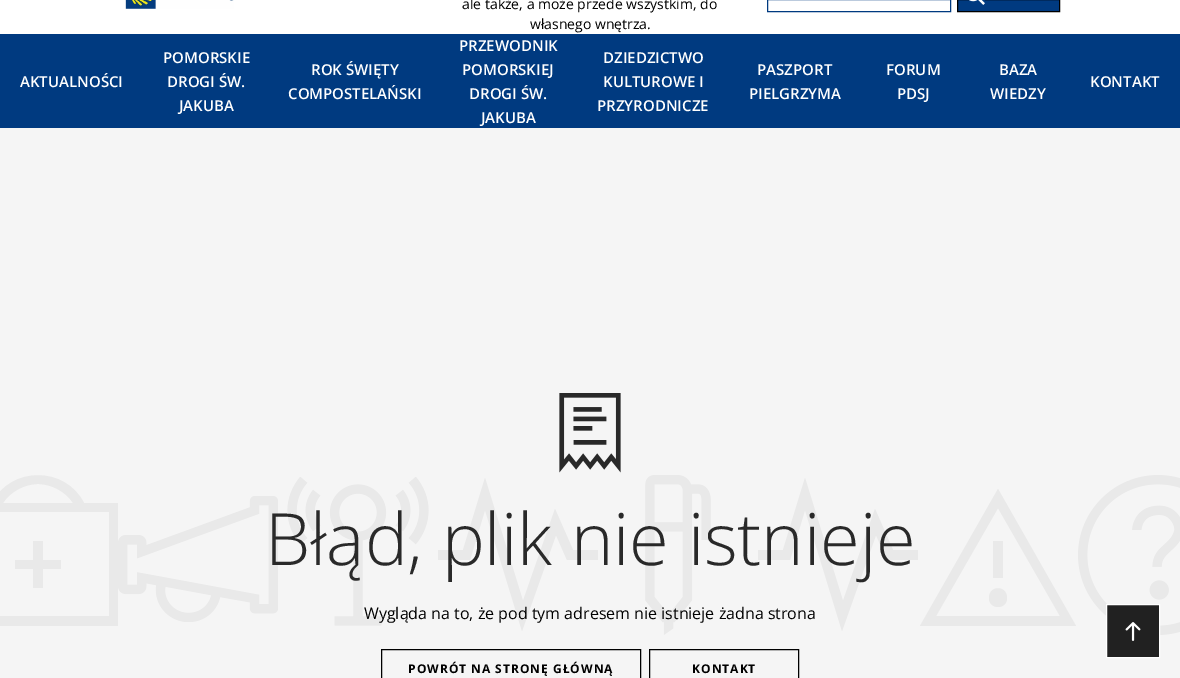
%!PS
<< /PageSize [1180 678] >> setpagedevice
/m/moveto load def
/l/rlineto load def
/c/rcurveto load def
/z/closepath load def
/f/fill load def
/s/stroke load def
/q/gsave load def
/Q_/grestore load def
/C { dup -16 bitshift 255 div exch dup -8 bitshift 255 and 255 div exch 255 and 255 div setrgbcolor } def
/F { [ exch dup neg 0 0 3 -1 roll 0 0 ] selectfont } def
/T { moveto show } def
/R { rectfill } def
/I { 5 dict begin { /h /w /y /x /name } { exch def } forall
  gsave x y translate w h scale
  w h 8 [w 0 0 h 0 0] name (r) file false 3 colorimage grestore end } def
0 678 translate 1 -1 scale
4 setmiterlimit
16#F5F5F5 C
0 0 1180 678 R
16#FFFFFF C
0 0 1180 34 R
(1.rgb) 125 0 109 9 I
/OpenSans-Regular 14 F
16#000000 C
(ale także, a może przede wszystkim, do) 462 9 T
(własnego wnętrza.) 530 29 T
16#003A80 C
767.5 -.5 183 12 rectstroke
957.5 -.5 m 102 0 l 0 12 l -102 0 l z q f Q_
16#000000 C
s
(2.rgb) 969 0 16 5 I
16#003A80 C
0 34 1180 94 R
/OpenSans-SemiBold 15 F
16#FFFFFF C
(AKTUALNOŚCI) 20 87 T
(POMORSKIE) 163 63 T
(DROGI ŚW.) 167 87 T
(JAKUBA) 179 111 T
(ROK ŚWIĘTY) 311 75 T
(COMPOSTELAŃSKI) 288 99 T
(PRZEWODNIK) 459 51 T
(POMORSKIEJ) 462 75 T
(DROGI ŚW.) 469 99 T
(JAKUBA) 481 123 T
(DZIEDZICTWO) 603 63 T
(KULTUROWE I) 603 87 T
(PRZYRODNICZE) 597 111 T
(PASZPORT) 757 75 T
(PIELGRZYMA) 749 99 T
(FORUM) 886 75 T
(PDSJ) 897 99 T
(BAZA) 999 75 T
(WIEDZY) 990 99 T
(KONTAKT) 1090 87 T
16#E9E9E9 C
84 503 m -19 -37 -73 -37 -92 0 c -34 0 l 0 123 l 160 0 l 0 -123 l z 38 484 m 14 0 28 8 35 19 c -70 0 l 7 -11 21 -19 35 -19 c z 109 616 m -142 0 l 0 -104 l 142 0 l z 33 569 m -18 0 l 0 -9 l 18 0 l 0 -19 l 10 0 l 0 19 l 18 0 l 0 9 l -18 0 l 0 19 l -10 0 l z f
(3.rgb) 118 496 160 126 I
(4.rgb) 287 477 142 149 I
573 550 m -18 -41 l -32 92 l -38 -123 l -22 72 l -25 0 l 0 10 l 32 0 l 15 -50 l 37 121 l 34 -96 l 11 25 l 31 0 l 0 -10 l z f
(5.rgb) 645 475 66 160 I
893 550 m -18 -41 l -32 92 l -38 -123 l -22 72 l -25 0 l 0 10 l 32 0 l 15 -50 l 37 121 l 34 -96 l 11 25 l 31 0 l 0 -10 l z f
998 489 m -78 137 l 156 0 l z 998 508 m 62 108 l -124 0 l z 1003 578 m -10 0 l 0 -37 l 10 0 l z 1007 598 m 0 12 -18 12 -18 0 c 0 -13 18 -13 18 0 c z f
(6.rgb) 1078 475 102 160 I
(7.rgb) 559 393 62 80 I
/OpenSans-Light 72 F
16#292929 C
(Błąd, plik nie istnieje) 265 565 T
/OpenSans-Regular 16 F
16#000000 C
(Wygląda na to, że pod tym adresem nie istnieje żadna strona) 364 619 T
381.5 649.5 259 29 rectstroke
/OpenSans-Bold 12 F
408 673 m 1 0 (POWRÓT NA STRONĘ GŁÓWNĄ) ashow
649.5 649.5 149 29 rectstroke
692 673 m 1 0 (KONTAKT) ashow
16#212121 C
1107 605 52 52 R
(8.rgb) 1125 622 16 19 I
16#FFFFFF C
1106.5 604.5 53 53 rectstroke
showpage
